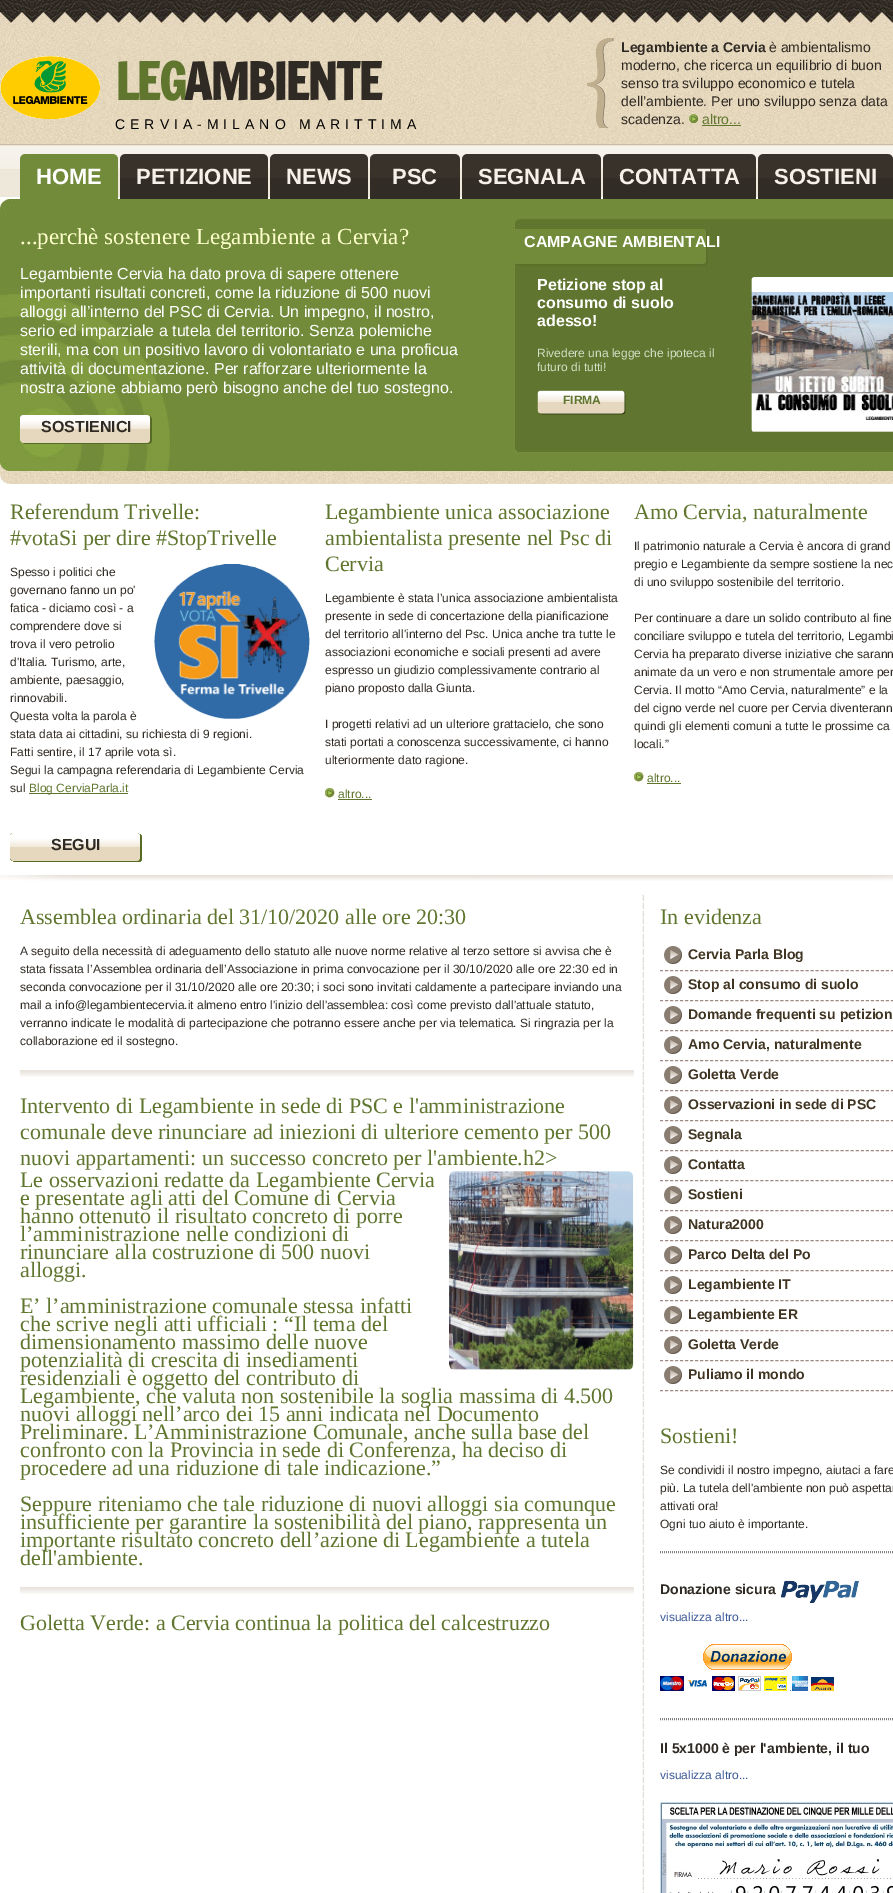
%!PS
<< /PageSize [893 1893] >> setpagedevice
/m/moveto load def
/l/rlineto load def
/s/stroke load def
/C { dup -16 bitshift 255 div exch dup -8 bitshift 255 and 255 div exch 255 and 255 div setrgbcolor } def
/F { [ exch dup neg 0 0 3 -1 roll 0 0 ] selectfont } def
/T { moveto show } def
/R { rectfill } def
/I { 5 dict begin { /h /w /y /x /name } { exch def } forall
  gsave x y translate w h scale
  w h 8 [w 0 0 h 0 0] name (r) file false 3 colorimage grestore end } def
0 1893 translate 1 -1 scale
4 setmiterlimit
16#FFFFFF C
0 0 893 1893 R
(1.rgb) 0 0 893 198 I
(2.rgb) 0 56 100 63 I
/FrancoisOne-Bold 50 F
16#60762F C
115 100 m -2 0 (LEG) ashow
16#302A24 C
184 100 m -2 0 (AMBIENTE) ashow
/LiberationSans-Regular 14 F
16#000000 C
115 129 m 5 0 (CERVIA-MILANO MARITTIMA) ashow
(3.rgb) 586 38 28 90 I
/LiberationSans-Bold 14 F
16#302A24 C
(Legambiente a Cervia) 621 52 T
/LiberationSans-Regular 14 F
(è ambientalismo) 769 52 T
(moderno, che ricerca un equilibrio di buon) 621 70 T
(senso tra sviluppo economico e tutela) 621 88 T
(dell’ambiente. Per uno sviluppo senza data) 621 106 T
(scadenza.) 621 124 T
(4.rgb) 689 114 10 10 I
16#60762F C
(altro...) 702 124 T
702 125 39 1 R
(5.rgb) 112 154 6 45 I
(6.rgb) 20 154 92 45 I
/LiberationSans-Bold 22 F
16#FFFFFF C
(HOME) 36 184 T
(7.rgb) 262 154 6 45 I
(8.rgb) 120 154 142 45 I
16#F5F1E9 C
(PETIZIONE) 136 184 T
(7.rgb) 362 154 6 45 I
(9.rgb) 270 154 92 45 I
(NEWS) 286 184 T
(7.rgb) 454 154 6 45 I
(10.rgb) 370 154 84 45 I
(PSC) 392 184 T
(7.rgb) 595 154 6 45 I
(11.rgb) 462 154 133 45 I
(SEGNALA) 478 184 T
(7.rgb) 750 154 6 45 I
(12.rgb) 603 154 147 45 I
(CONTATTA) 619 184 T
(7.rgb) 887 154 6 45 I
(13.rgb) 758 154 129 45 I
(SOSTIENI) 774 184 T
(14.rgb) 0 199 893 285 I
/LiberationSerif-Regular 23 F
16#FFFFCC C
(...perchè sostenere Legambiente a Cervia?) 20 244 T
/LiberationSans-Regular 16 F
16#FFFFFF C
(Legambiente Cervia ha dato prova di sapere ottenere) 20 279 T
(importanti risultati concreti, come la riduzione di 500 nuovi) 20 298 T
(alloggi all’interno del PSC di Cervia. Un impegno, il nostro,) 20 317 T
(serio ed imparziale a tutela del territorio. Senza polemiche) 20 336 T
(sterili, ma con un positivo lavoro di volontariato e una proficua) 20 355 T
(attività di documentazione. Per rafforzare ulteriormente la) 20 374 T
(nostra azione abbiamo però bisogno anche del tuo sostegno.) 20 393 T
(15.rgb) 20 415 132 29 I
/LiberationSans-Bold 16 F
16#302A24 C
(SOSTIENICI) 41 432 T
16#FFFFFF C
(CAMPAGNE AMBIENTALI) 524 247 T
(Petizione stop al) 537 290 T
(consumo di suolo) 537 308 T
(adesso!) 537 326 T
/LiberationSans-Regular 12 F
16#D2E1C6 C
(Rivedere una legge che ipoteca il) 537 357 T
(futuro di tutti!) 537 371 T
(16.rgb) 537 390 89 25 I
/LiberationSans-Bold 12 F
16#60762F C
(FIRMA) 563 404 T
(17.rgb) 751 277 142 155 I
/LiberationSerif-Regular 22 F
(Referendum Trivelle:) 10 519 T
(#votaSi per dire #StopTrivelle) 10 545 T
(18.rgb) 154 564 156 155 I
/LiberationSans-Regular 12 F
16#302A24 C
(Spesso i politici che) 10 576 T
(governano fanno un po') 10 594 T
(fatica - diciamo così - a) 10 612 T
(comprendere dove si) 10 630 T
(trova il vero petrolio) 10 648 T
(d'Italia. Turismo, arte,) 10 666 T
(ambiente, paesaggio,) 10 684 T
(rinnovabili.) 10 702 T
(Questa volta la parola è) 10 720 T
(stata data ai cittadini, su richiesta di 9 regioni.) 10 738 T
(Fatti sentire, il 17 aprile vota sì.) 10 756 T
(Segui la campagna referendaria di Legambiente Cervia) 10 774 T
(sul) 10 792 T
16#60762F C
29 793 99 1 R
(Blog CerviaParla.it) 29 792 T
(19.rgb) 10 833 132 29 I
/LiberationSans-Bold 16 F
16#302A24 C
(SEGUI) 51 850 T
/LiberationSerif-Regular 22 F
16#60762F C
(Legambiente unica associazione) 325 519 T
(ambientalista presente nel Psc di) 325 545 T
(Cervia) 325 571 T
/LiberationSans-Regular 12 F
16#302A24 C
(Legambiente è stata l’unica associazione ambientalista) 325 602 T
(presente in sede di concertazione della pianificazione) 325 620 T
(del territorio all'interno del Psc. Unica anche tra tutte le) 325 638 T
(associazioni economiche e sociali presenti ad avere) 325 656 T
(espresso un giudizio complessivamente contrario al) 325 674 T
(piano proposto dalla Giunta.) 325 692 T
(I progetti relativi ad un ulteriore grattacielo, che sono) 325 728 T
(stati portati a conoscenza successivamente, ci hanno) 325 746 T
(ulteriormente dato ragione.) 325 764 T
(20.rgb) 325 788 10 10 I
16#60762F C
(altro...) 338 798 T
338 799 34 1 R
/LiberationSerif-Regular 22 F
(Amo Cervia, naturalmente) 634 519 T
/LiberationSans-Regular 12 F
16#302A24 C
(Il patrimonio naturale a Cervia è ancora di grand) 634 550 T
(pregio e Legambiente da sempre sostiene la nec) 634 568 T
(di uno sviluppo sostenibile del territorio.) 634 586 T
(Per continuare a dare un solido contributo al fine) 634 622 T
(conciliare sviluppo e tutela del territorio, Legambi) 634 640 T
(Cervia ha preparato diverse iniziative che sarann) 634 658 T
(animate da un vero e non strumentale amore per) 634 676 T
(Cervia. Il motto “Amo Cervia, naturalmente” e la) 634 694 T
(del cigno verde nel cuore per Cervia diventerann) 634 712 T
(quindi gli elementi comuni a tutte le prossime ca) 634 730 T
(locali.”) 634 748 T
(20.rgb) 634 772 10 10 I
16#60762F C
(altro...) 647 782 T
647 783 34 1 R
(21.rgb) 0 875 893 6 I
(22.rgb) 642 894 2 999 I
(23.rgb) 20 1070 614 7 I
/LiberationSerif-Regular 22 F
(Assemblea ordinaria del 31/10/2020 alle ore 20:30) 20 924 T
/LiberationSans-Regular 12 F
16#302A24 C
(A seguito della necessità di adeguamento dello statuto alle nuove norme relative al terzo settore si avvisa che è) 20 955 T
(stata fissata l’Assemblea ordinaria dell’Associazione in prima convocazione per il 30/10/2020 alle ore 22:30 ed in) 20 973 T
(seconda convocazione per il 31/10/2020 alle ore 20:30; i soci sono invitati caldamente a partecipare inviando una) 20 991 T
(mail a info@legambientecervia.it almeno entro l'inizio dell'assemblea: così come previsto dall'attuale statuto,) 20 1009 T
(verranno indicate le modalità di partecipazione che potranno essere anche per via telematica. Si ringrazia per la) 20 1027 T
(collaborazione ed il sostegno.) 20 1045 T
(23.rgb) 20 1587 614 7 I
/LiberationSerif-Regular 22 F
16#60762F C
(Intervento di Legambiente in sede di PSC e l'amministrazione) 20 1113 T
(comunale deve rinunciare ad iniezioni di ulteriore cemento per 500) 20 1139 T
(nuovi appartamenti: un successo concreto per l'ambiente.h2>) 20 1165 T
(Le osservazioni redatte da Legambiente Cervia) 20 1187 T
(e presentate agli atti del Comune di Cervia) 20 1205 T
(hanno ottenuto il risultato concreto di porre) 20 1223 T
(l’amministrazione nelle condizioni di) 20 1241 T
(rinunciare alla costruzione di 500 nuovi) 20 1259 T
(alloggi.) 20 1277 T
(24.rgb) 449 1171 185 199 I
(E’ l’amministrazione comunale stessa infatti) 20 1313 T
(che scrive negli atti ufficiali : “Il tema del) 20 1331 T
(dimensionamento massimo delle nuove) 20 1349 T
(potenzialità di crescita di insediamenti) 20 1367 T
(residenziali è oggetto del contributo di) 20 1385 T
(Legambiente, che valuta non sostenibile la soglia massima di 4.500) 20 1403 T
(nuovi alloggi nell’arco dei 15 anni indicata nel Documento) 20 1421 T
(Preliminare. L’Amministrazione Comunale, anche sulla base del) 20 1439 T
(confronto con la Provincia in sede di Conferenza, ha deciso di) 20 1457 T
(procedere ad una riduzione di tale indicazione.”) 20 1475 T
(Seppure riteniamo che tale riduzione di nuovi alloggi sia comunque) 20 1511 T
(insufficiente per garantire la sostenibilità del piano, rappresenta un) 20 1529 T
(importante risultato concreto dell’azione di Legambiente a tutela) 20 1547 T
(dell'ambiente.) 20 1565 T
(Goletta Verde: a Cervia continua la politica del calcestruzzo) 20 1630 T
(In evidenza) 660 924 T
16#9E8A85 C
[3 2.02] 0 setdash
660 970.5 m 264 0 l s
(25.rgb) 664 946 18 18 I
/LiberationSans-Bold 14 F
16#403522 C
(Cervia Parla Blog) 688 959 T
16#9E8A85 C
660 1000.5 m 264 0 l s
(25.rgb) 664 976 18 18 I
16#403522 C
(Stop al consumo di suolo) 688 989 T
16#9E8A85 C
660 1030.5 m 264 0 l s
(25.rgb) 664 1006 18 18 I
16#403522 C
(Domande frequenti su petizion) 688 1019 T
16#9E8A85 C
660 1060.5 m 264 0 l s
(25.rgb) 664 1036 18 18 I
16#403522 C
(Amo Cervia, naturalmente) 688 1049 T
16#9E8A85 C
660 1090.5 m 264 0 l s
(25.rgb) 664 1066 18 18 I
16#403522 C
(Goletta Verde) 688 1079 T
16#9E8A85 C
660 1120.5 m 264 0 l s
(25.rgb) 664 1096 18 18 I
16#403522 C
(Osservazioni in sede di PSC) 688 1109 T
16#9E8A85 C
660 1150.5 m 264 0 l s
(25.rgb) 664 1126 18 18 I
16#403522 C
(Segnala) 688 1139 T
16#9E8A85 C
660 1180.5 m 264 0 l s
(25.rgb) 664 1156 18 18 I
16#403522 C
(Contatta) 688 1169 T
16#9E8A85 C
660 1210.5 m 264 0 l s
(25.rgb) 664 1186 18 18 I
16#403522 C
(Sostieni) 688 1199 T
16#9E8A85 C
660 1240.5 m 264 0 l s
(25.rgb) 664 1216 18 18 I
16#403522 C
(Natura2000) 688 1229 T
16#9E8A85 C
660 1270.5 m 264 0 l s
(25.rgb) 664 1246 18 18 I
16#403522 C
(Parco Delta del Po) 688 1259 T
16#9E8A85 C
660 1300.5 m 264 0 l s
(25.rgb) 664 1276 18 18 I
16#403522 C
(Legambiente IT) 688 1289 T
16#9E8A85 C
660 1330.5 m 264 0 l s
(25.rgb) 664 1306 18 18 I
16#403522 C
(Legambiente ER) 688 1319 T
16#9E8A85 C
660 1360.5 m 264 0 l s
(25.rgb) 664 1336 18 18 I
16#403522 C
(Goletta Verde) 688 1349 T
16#9E8A85 C
660 1390.5 m 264 0 l s
(25.rgb) 664 1366 18 18 I
16#403522 C
(Puliamo il mondo) 688 1379 T
/LiberationSerif-Regular 22 F
16#60762F C
(Sostieni!) 660 1443 T
/LiberationSans-Regular 12 F
16#302A24 C
(Se condividi il nostro impegno, aiutaci a fare) 660 1474 T
(più. La tutela dell'ambiente non può aspettar) 660 1492 T
(attivati ora!) 660 1510 T
(Ogni tuo aiuto è importante.) 660 1528 T
16#808080 C
[1 1] 0 setdash
660 1551.5 m 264 0 l s
660 1552.5 m 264 0 l s
/LiberationSans-Bold 14 F
16#302A24 C
(Donazione sicura) 660 1594 T
(26.rgb) 781 1580 78 23 I
/LiberationSans-Regular 12 F
16#3B5998 C
(visualizza altro...) 660 1621 T
(27.rgb) 660 1644 174 47 I
16#808080 C
660 1718.5 m 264 0 l s
660 1719.5 m 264 0 l s
/LiberationSans-Bold 14 F
16#302A24 C
(Il 5x1000 è per l'ambiente, il tuo) 660 1753 T
/LiberationSans-Regular 12 F
16#3B5998 C
(visualizza altro...) 660 1779 T
(28.rgb) 660 1802 233 91 I
showpage
